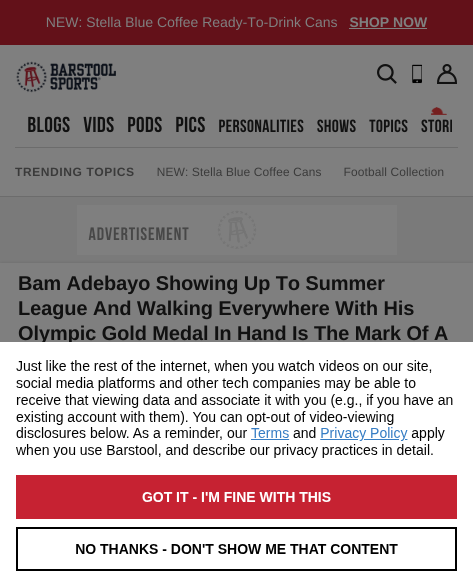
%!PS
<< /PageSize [473 587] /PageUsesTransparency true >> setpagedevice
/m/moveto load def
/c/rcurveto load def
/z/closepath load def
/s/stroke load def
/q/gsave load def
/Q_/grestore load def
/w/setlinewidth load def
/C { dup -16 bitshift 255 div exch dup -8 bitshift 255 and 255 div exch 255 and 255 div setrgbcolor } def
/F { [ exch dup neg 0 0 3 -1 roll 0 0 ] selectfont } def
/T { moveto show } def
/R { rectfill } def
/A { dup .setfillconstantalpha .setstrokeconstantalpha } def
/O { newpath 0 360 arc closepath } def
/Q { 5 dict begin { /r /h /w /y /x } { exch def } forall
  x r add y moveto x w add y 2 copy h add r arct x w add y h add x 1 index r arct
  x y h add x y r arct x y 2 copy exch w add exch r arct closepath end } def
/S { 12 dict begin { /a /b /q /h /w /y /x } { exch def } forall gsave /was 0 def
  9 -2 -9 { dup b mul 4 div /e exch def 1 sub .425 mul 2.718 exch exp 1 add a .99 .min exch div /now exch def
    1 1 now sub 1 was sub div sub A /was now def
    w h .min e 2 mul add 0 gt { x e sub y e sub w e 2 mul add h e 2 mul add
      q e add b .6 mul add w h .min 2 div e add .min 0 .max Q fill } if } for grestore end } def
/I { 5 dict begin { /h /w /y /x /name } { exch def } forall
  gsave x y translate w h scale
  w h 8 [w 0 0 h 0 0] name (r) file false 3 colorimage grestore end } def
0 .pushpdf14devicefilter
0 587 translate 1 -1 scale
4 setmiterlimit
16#F5F5F5 C
0 0 473 587 R
16#C62232 C
0 0 473 45 R
/LiberationSans-Regular 14 F
16#FFFFFF C
(NEW: Stella Blue Coffee Ready-To-Drink Cans) 46 27 T
/LiberationSans-Bold 14 F
(SHOP NOW) 349 27 T
349 28 78 1 R
0 45 473 151 R
(2.rgb) 16 61 100 32 I
(3.rgb) 377 64 20 20 I
(4.rgb) 412 64 10 20 I
16#222222 C
2.1 w
447 68.5 3.5 O s
q
437 64 20 20 rectclip
456 83 m 0 -14 -18 -14 -18 0 c z s
Q_
/BebasNeue-Bold 22 F
27 132 m .4 0 (BLOGS) ashow
83 132 m .4 0 (VIDS) ashow
127 132 m .4 0 (PODS) ashow
175 132 m .4 0 (PICS) ashow
/BebasNeue-Bold 17.5 F
219 132 m .4 0 (PERSONALITIES) ashow
317 132 m .4 0 (SHOWS) ashow
369 132 m .4 0 (TOPICS) ashow
(5.rgb) 431 107 16 8 I
q
21 102 431 45 rectclip
421 132 m .4 0 (STORE) ashow
Q_
16#D8D8D8 C
0 196 473 1 R
15 147 443 1 R
/LiberationSans-Bold 12 F
16#757575 C
15 176 m .6 0 (TRENDING TOPICS) ashow
/LiberationSans-Regular 12 F
157 176 m .1 0 (NEW: Stella Blue Coffee Cans) ashow
344 176 m .1 0 (Football Collection) ashow
16#FFFFFF C
77 205 320 50 R
/BebasNeue-Bold 18 F
16#8F8F8F C
89 240 m .9 0 (ADVERTISEMENT) ashow
(6.rgb) 217 210 40 39 I
16#333333 C
0 263 473 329 0 1.5 .18 S
16#FFFFFF C
0 263 473 324 R
/LiberationSans-Bold 20 F
16#222222 C
18 290 m -.1 0 (Bam Adebayo Showing Up To Summer) ashow
18 315 m -.1 0 (League And Walking Everywhere With His) ashow
18 340 m -.1 0 (Olympic Gold Medal In Hand Is The Mark Of A) ashow
(1.rgb) 0 0 473 571 I
.poppdf14devicefilter showpage
